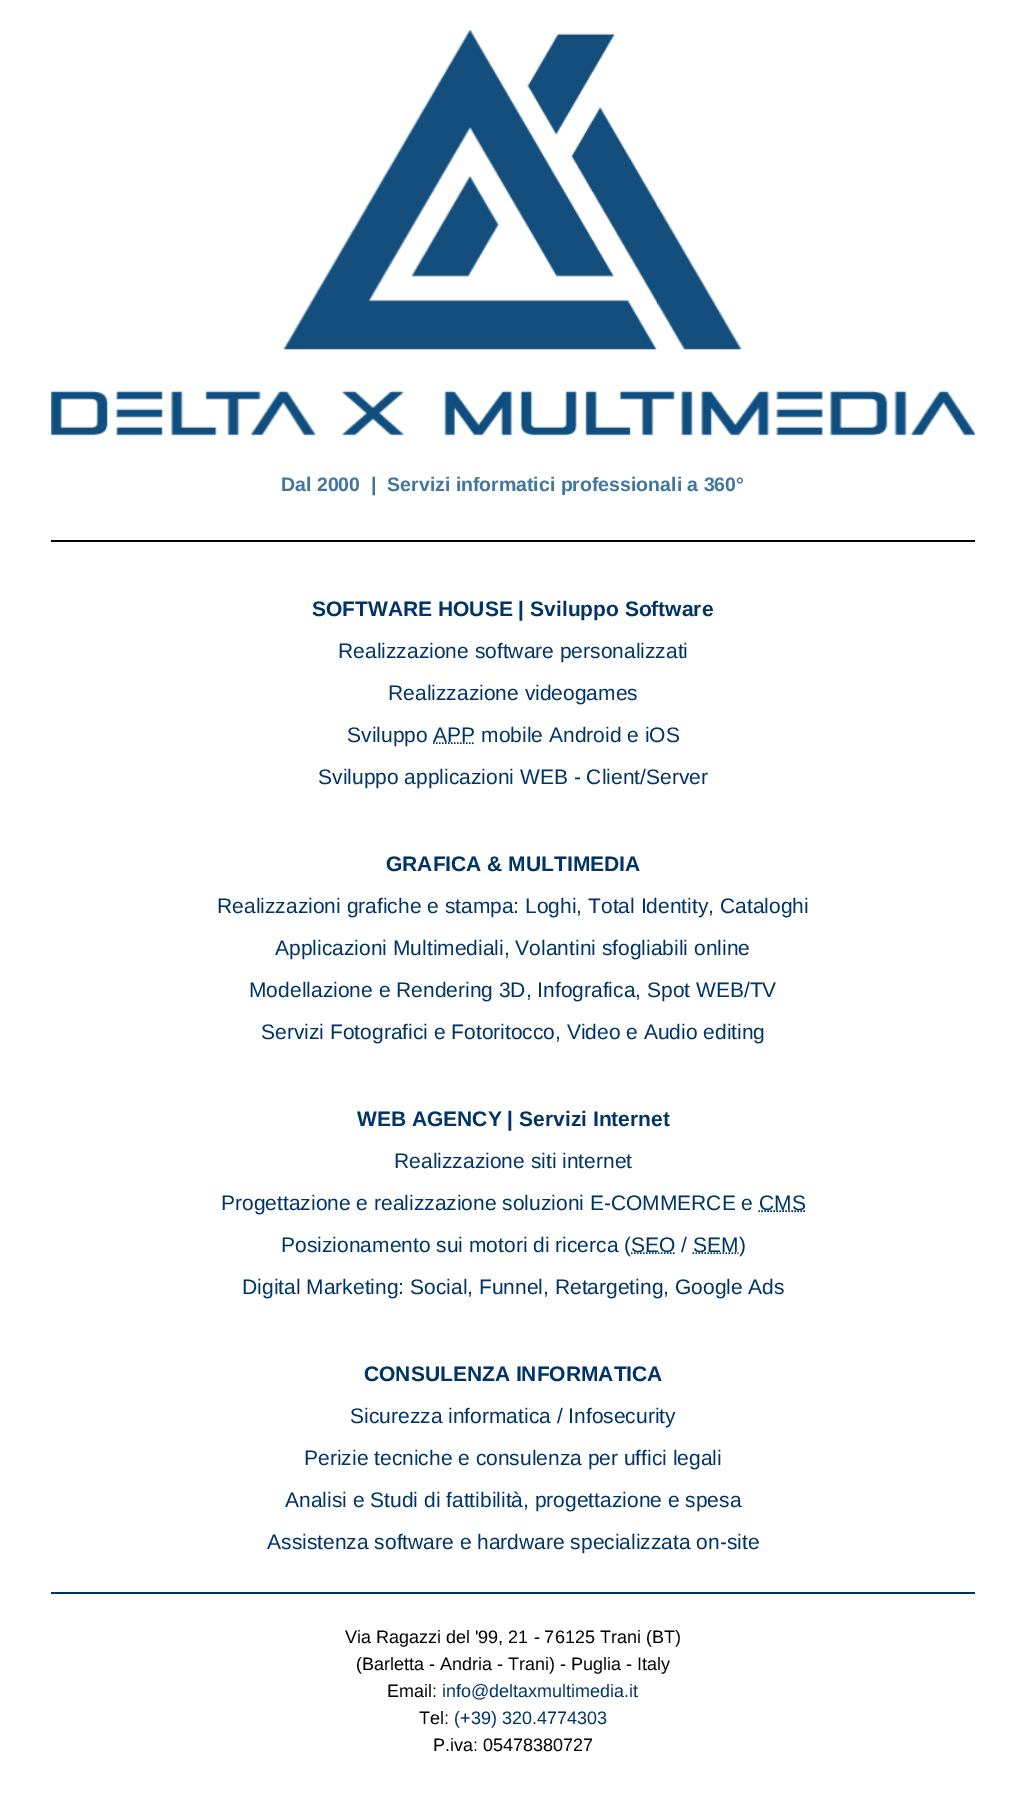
%!PS
<< /PageSize [1026 1817] >> setpagedevice
/m/moveto load def
/l/rlineto load def
/s/stroke load def
/w/setlinewidth load def
/C { dup -16 bitshift 255 div exch dup -8 bitshift 255 and 255 div exch 255 and 255 div setrgbcolor } def
/F { [ exch dup neg 0 0 3 -1 roll 0 0 ] selectfont } def
/T { moveto show } def
/R { rectfill } def
/I { 5 dict begin { /h /w /y /x /name } { exch def } forall
  gsave x y translate w h scale
  w h 8 [w 0 0 h 0 0] name (r) file false 3 colorimage grestore end } def
0 1817 translate 1 -1 scale
4 setmiterlimit
16#FFFFFF C
0 0 1026 1817 R
(1.rgb) 51 30 924 406 I
16#000000 C
51 540 924 2 R
/LiberationSans-Bold 19.5 F
16#41769D C
(Dal 2000  |  Servizi informatici professionali a 360°) 281 491 T
/LiberationSans-Bold 21 F
16#003366 C
(SOFTWARE HOUSE | Sviluppo Software) 312 616 T
/LiberationSans-Regular 21 F
(Realizzazione software personalizzati) 338 658 T
(Realizzazione videogames) 388 700 T
(Sviluppo APP mobile Android e iOS) 347 742 T
1.5 w
[1.5 1.5] 0 setdash
433 743 m 42 0 l s
(Sviluppo applicazioni WEB - Client/Server) 318 784 T
/LiberationSans-Bold 21 F
(GRAFICA & MULTIMEDIA) 386 871 T
/LiberationSans-Regular 21 F
(Realizzazioni grafiche e stampa: Loghi, Total Identity, Cataloghi) 217 913 T
(Applicazioni Multimediali, Volantini sfogliabili online) 275 955 T
(Modellazione e Rendering 3D, Infografica, Spot WEB/TV) 249 997 T
(Servizi Fotografici e Fotoritocco, Video e Audio editing) 261 1039 T
/LiberationSans-Bold 21 F
(WEB AGENCY | Servizi Internet) 357 1126 T
/LiberationSans-Regular 21 F
(Realizzazione siti internet) 394 1168 T
(Progettazione e realizzazione soluzioni E-COMMERCE e) 221 1210 T
758.5 1211 m 47 0 l s
(CMS) 759 1210 T
(Posizionamento sui motori di ricerca \() 281 1252 T
631 1253 m 44 0 l s
(SEO /) 631 1252 T
692.5 1253 m 46 0 l s
(SEM\)) 693 1252 T
(Digital Marketing: Social, Funnel, Retargeting, Google Ads) 242 1294 T
/LiberationSans-Bold 21 F
(CONSULENZA INFORMATICA) 364 1381 T
/LiberationSans-Regular 21 F
(Sicurezza informatica / Infosecurity) 350 1423 T
(Perizie tecniche e consulenza per uffici legali) 304 1465 T
(Analisi e Studi di fattibilità, progettazione e spesa) 285 1507 T
(Assistenza software e hardware specializzata on-site) 267 1549 T
51 1592 924 2 R
/LiberationSans-Regular 18 F
16#000000 C
(Via Ragazzi del '99, 21 - 76125 Trani \(BT\)) 345 1643 T
(\(Barletta - Andria - Trani\) - Puglia - Italy) 356 1670 T
(Email:) 387 1697 T
16#003366 C
(info@deltaxmultimedia.it) 442 1697 T
16#000000 C
(Tel:) 419 1724 T
16#003366 C
(\(+39\) 320.4774303) 454 1724 T
16#000000 C
(P.iva: 05478380727) 433 1751 T
showpage
